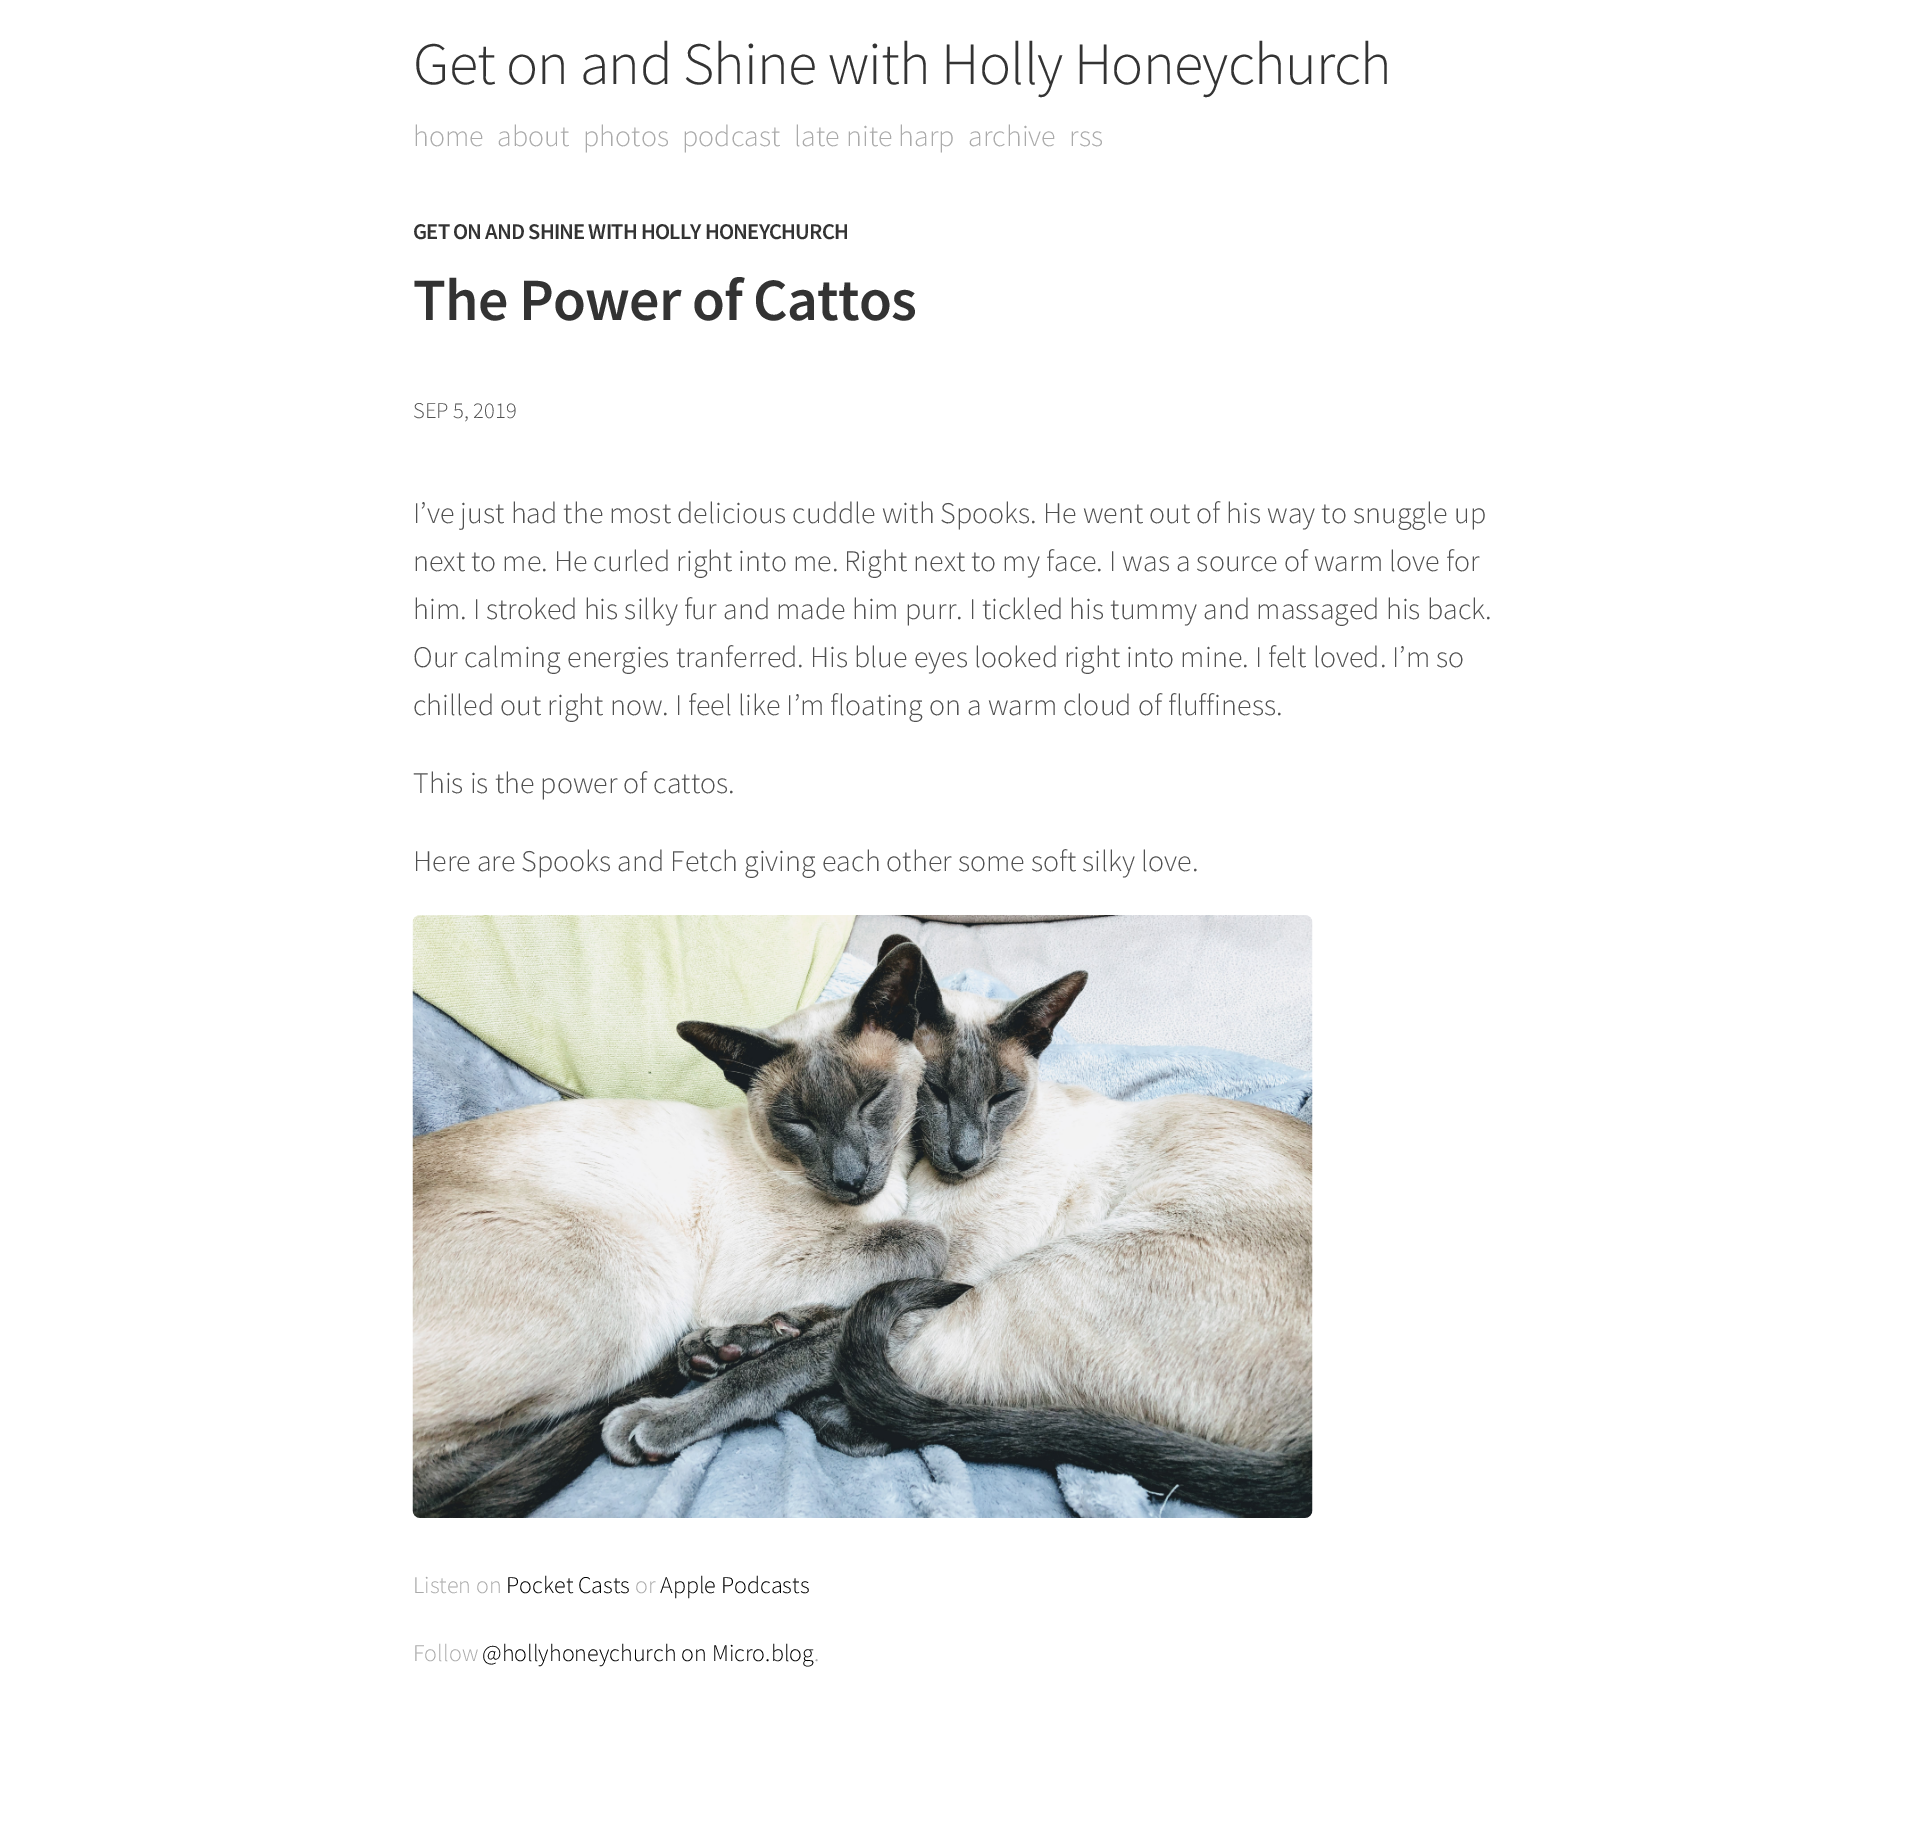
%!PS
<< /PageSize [1905 1823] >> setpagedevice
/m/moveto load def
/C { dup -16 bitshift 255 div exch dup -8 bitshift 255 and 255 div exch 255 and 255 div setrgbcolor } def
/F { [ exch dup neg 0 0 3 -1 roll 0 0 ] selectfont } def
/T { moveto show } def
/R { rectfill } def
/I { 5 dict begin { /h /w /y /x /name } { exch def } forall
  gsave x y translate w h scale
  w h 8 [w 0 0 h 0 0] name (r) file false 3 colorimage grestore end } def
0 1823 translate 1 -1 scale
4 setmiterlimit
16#FFFFFF C
0 0 1905 1823 R
/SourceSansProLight-Light 60 F
16#333333 C
413 84 m -.75 0 (Get on and Shine with Holly Honeychurch) ashow
/SourceSansProLight-Light 30 F
16#AAAAAA C
(home) 413 146 T
(about) 497 146 T
(photos) 583 146 T
(podcast) 682 146 T
(late nite harp) 794 146 T
(archive) 968 146 T
(rss) 1069 146 T
/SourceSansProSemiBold-SemiBold 22.5 F
16#333333 C
413 239 m -.75 0 (GET ON AND SHINE WITH HOLLY HONEYCHURCH) ashow
/SourceSansProSemiBold-SemiBold 60 F
413 320 m -.75 0 (The Power of Cattos) ashow
/SourceSansProLight-Light 22.5 F
16#515151 C
(SEP 5, 2019) 413 418 T
/SourceSansProLight-Light 30 F
(I’ve just had the most delicious cuddle with Spooks. He went out of his way to snuggle up) 413 523 T
(next to me. He curled right into me. Right next to my face. I was a source of warm love for) 413 571 T
(him. I stroked his silky fur and made him purr. I tickled his tummy and massaged his back.) 413 619 T
(Our calming energies tranferred. His blue eyes looked right into mine. I felt loved. I’m so) 413 667 T
(chilled out right now. I feel like I’m floating on a warm cloud of fluffiness.) 413 715 T
(This is the power of cattos.) 413 793 T
(Here are Spooks and Fetch giving each other some soft silky love.) 413 871 T
(1.rgb) 412 915 901 603 I
/SourceSansProLight-Light 24 F
16#AAAAAA C
(Listen on) 413 1593 T
16#000000 C
(Pocket Casts) 506 1593 T
16#AAAAAA C
(or) 635 1593 T
16#000000 C
(Apple Podcasts) 660 1593 T
16#AAAAAA C
(Follow) 413 1661 T
16#000000 C
(@hollyhoneychurch on Micro.blog) 482 1661 T
16#AAAAAA C
(.) 814 1661 T
showpage
